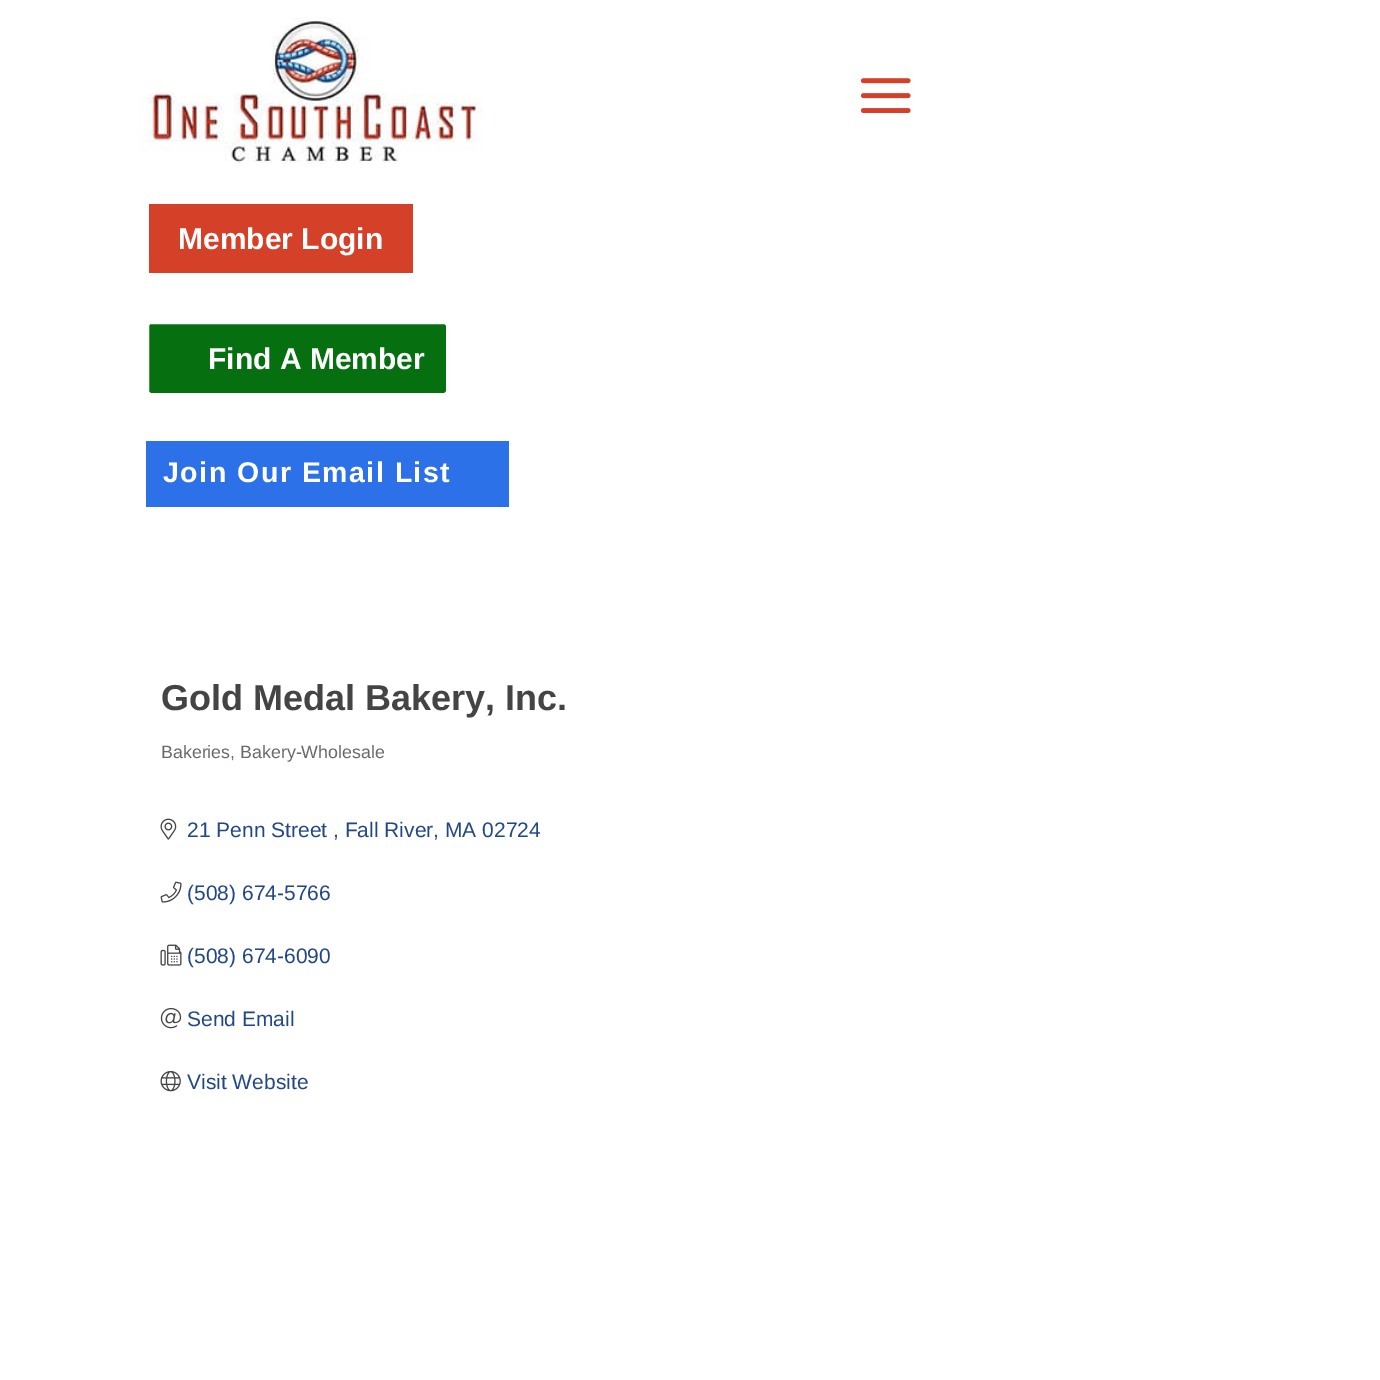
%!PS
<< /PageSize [1380 1380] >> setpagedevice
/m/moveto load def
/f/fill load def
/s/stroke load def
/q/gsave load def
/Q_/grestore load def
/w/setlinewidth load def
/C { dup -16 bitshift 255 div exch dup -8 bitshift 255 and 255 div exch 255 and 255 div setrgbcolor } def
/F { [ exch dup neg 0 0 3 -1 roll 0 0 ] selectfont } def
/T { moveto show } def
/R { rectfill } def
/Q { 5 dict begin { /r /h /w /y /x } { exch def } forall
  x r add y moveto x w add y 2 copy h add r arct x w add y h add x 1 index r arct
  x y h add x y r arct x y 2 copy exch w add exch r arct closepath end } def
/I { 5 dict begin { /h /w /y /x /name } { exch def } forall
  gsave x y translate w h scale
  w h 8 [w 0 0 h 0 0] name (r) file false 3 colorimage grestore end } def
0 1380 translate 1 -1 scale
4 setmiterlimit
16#FFFFFF C
0 0 1380 1380 R
(1.rgb) 138 17 345 147 I
(2.rgb) 860 78 51 35 I
16#D54029 C
149 204 264 69 R
/LiberationSans-Bold 30 F
16#FFFFFF C
(Member Login) 178 249 T
16#067011 C
147.5 322.5 300 72 3.5 Q q f Q_
16#FFFFFF C
3 w
s
(Find A Member) 208 369 T
16#2C71E8 C
146 441 363 66 R
/LiberationSans-Bold 28.5 F
16#FFFFFF C
163 482 m 1.5 0 (Join Our Email List) ashow
/LiberationSans-Bold 36 F
16#444444 C
(Gold Medal Bakery, Inc.) 161 710 T
/LiberationSans-Regular 17.8 F
16#696969 C
(Bakeries, Bakery-Wholesale) 161 758 T
(3.rgb) 160 818 17 22 I
/LiberationSans-Regular 21 F
16#224884 C
(21 Penn Street , Fall River, MA 02724) 187 837 T
(4.rgb) 160 881 22 22 I
(\(508\) 674-5766) 187 900 T
(5.rgb) 160 944 22 22 I
(\(508\) 674-6090) 187 963 T
(6.rgb) 160 1008 22 21 I
(Send Email) 187 1026 T
(7.rgb) 160 1071 21 21 I
(Visit Website) 187 1089 T
showpage
